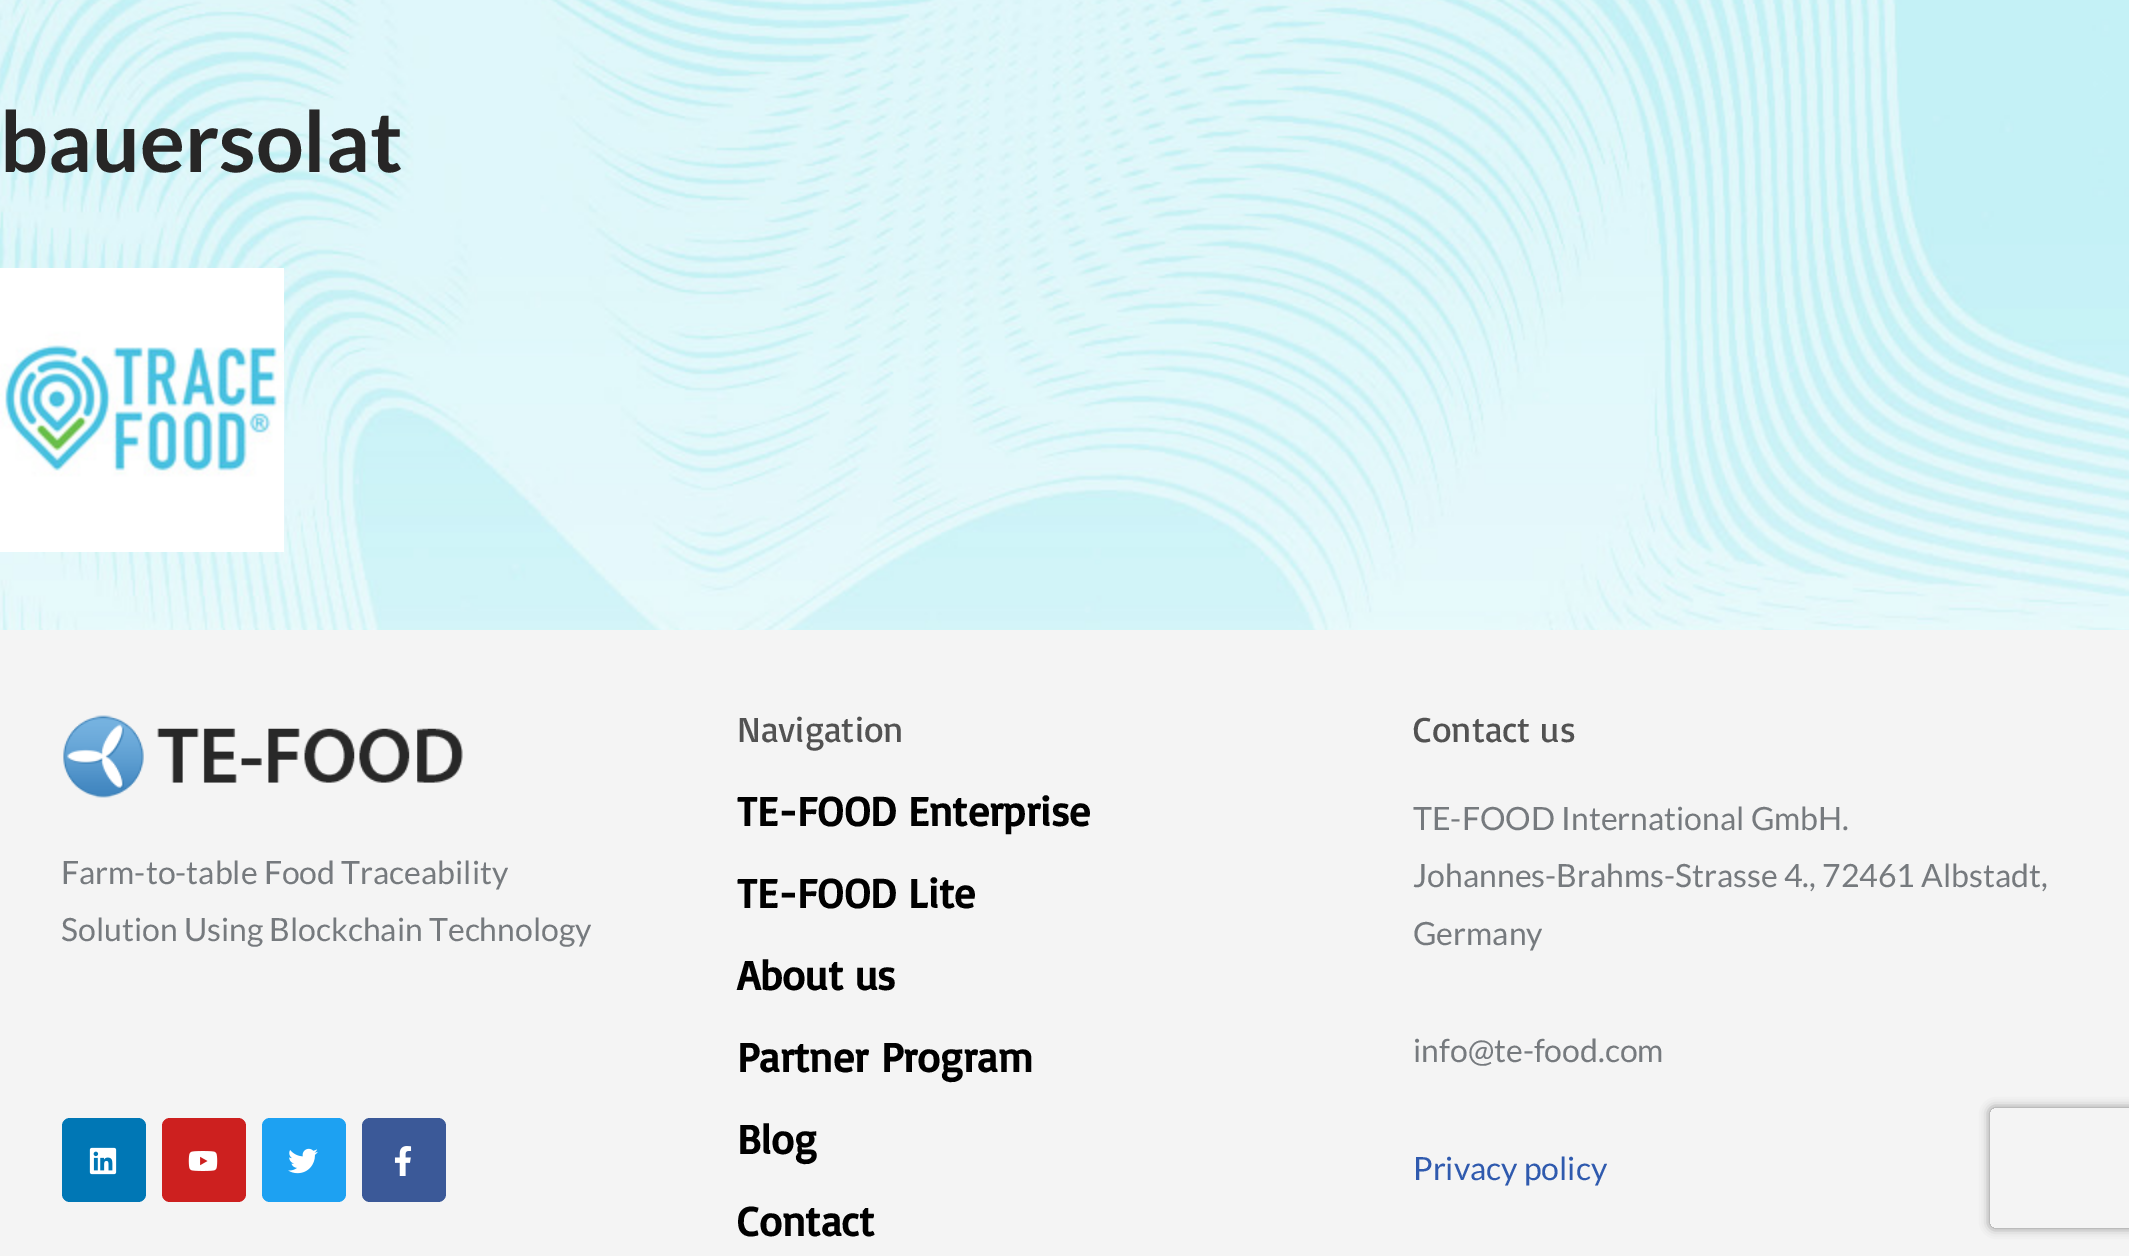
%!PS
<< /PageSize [2129 1256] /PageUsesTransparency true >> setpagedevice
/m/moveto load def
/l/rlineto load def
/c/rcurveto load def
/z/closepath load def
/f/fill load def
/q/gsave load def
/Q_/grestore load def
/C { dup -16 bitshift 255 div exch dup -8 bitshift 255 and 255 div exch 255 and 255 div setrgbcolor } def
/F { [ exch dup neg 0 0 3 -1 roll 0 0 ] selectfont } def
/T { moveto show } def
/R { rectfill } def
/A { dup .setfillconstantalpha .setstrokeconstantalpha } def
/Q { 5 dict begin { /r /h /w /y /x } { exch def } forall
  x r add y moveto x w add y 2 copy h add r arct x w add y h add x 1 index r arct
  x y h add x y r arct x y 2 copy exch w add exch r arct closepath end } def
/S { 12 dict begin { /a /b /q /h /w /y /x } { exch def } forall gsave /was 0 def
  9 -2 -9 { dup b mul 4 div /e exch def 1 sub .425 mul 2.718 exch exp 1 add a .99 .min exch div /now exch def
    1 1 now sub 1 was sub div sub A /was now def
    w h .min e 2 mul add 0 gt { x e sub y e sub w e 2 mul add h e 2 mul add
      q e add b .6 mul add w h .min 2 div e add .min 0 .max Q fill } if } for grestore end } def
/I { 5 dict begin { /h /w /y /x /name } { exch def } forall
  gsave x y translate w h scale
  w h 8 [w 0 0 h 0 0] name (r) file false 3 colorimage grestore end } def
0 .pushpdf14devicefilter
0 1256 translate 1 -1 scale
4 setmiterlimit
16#FFFFFF C
0 0 2129 1256 R
(1.rgb) 0 0 2129 630 I
/Lato-Bold 84 F
16#272626 C
(bauersolat) 0 172 T
(2.rgb) 0 268 284 284 I
16#F4F4F4 C
0 630 2129 626 R
(3.rgb) 63 715 400 83 I
/Lato-Regular 32 F
16#767A7E C
(Farm-to-table Food Traceability) 61 884 T
(Solution Using Blockchain Technology) 61 941 T
16#0077B5 C
62 1118 84 84 8 Q f
(4.rgb) 89 1147 28 28 I
16#CD201F C
162 1118 84 84 8 Q f
(5.rgb) 188 1151 30 20 I
16#1DA1F2 C
262 1118 84 84 8 Q f
(6.rgb) 288 1148 30 26 I
16#3B5998 C
362 1118 84 84 8 Q f
(7.rgb) 394 1146 18 30 I
/Basic-Regular 36 F
16#525252 C
(Navigation) 737 742 T
/Basic-Bold 42 F
16#000000 C
(TE-FOOD Enterprise) 737 826 T
(TE-FOOD Lite) 737 908 T
(About us) 737 990 T
(Partner Program) 737 1072 T
(Blog) 737 1154 T
(Contact) 737 1236 T
/Basic-Regular 36 F
16#525252 C
(Contact us) 1413 742 T
/Lato-Regular 32 F
16#767A7E C
(TE-FOOD International GmbH.) 1413 830 T
(Johannes-Brahms-Strasse 4., 72461 Albstadt,) 1413 887 T
(Germany) 1413 945 T
(info@te-food.com) 1413 1062 T
16#2F5AAE C
(Privacy policy) 1413 1180 T
q
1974 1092 m 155 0 l 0 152 l -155 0 l z 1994 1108 m 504 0 l 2 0 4 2 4 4 c 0 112 l 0 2 -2 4 -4 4 c -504 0 l -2 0 -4 -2 -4 -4 c 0 -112 l 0 -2 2 -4 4 -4 c z eoclip newpath
16#808080 C
1990 1108 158 120 4 5 1 S
Q_
.poppdf14devicefilter showpage
